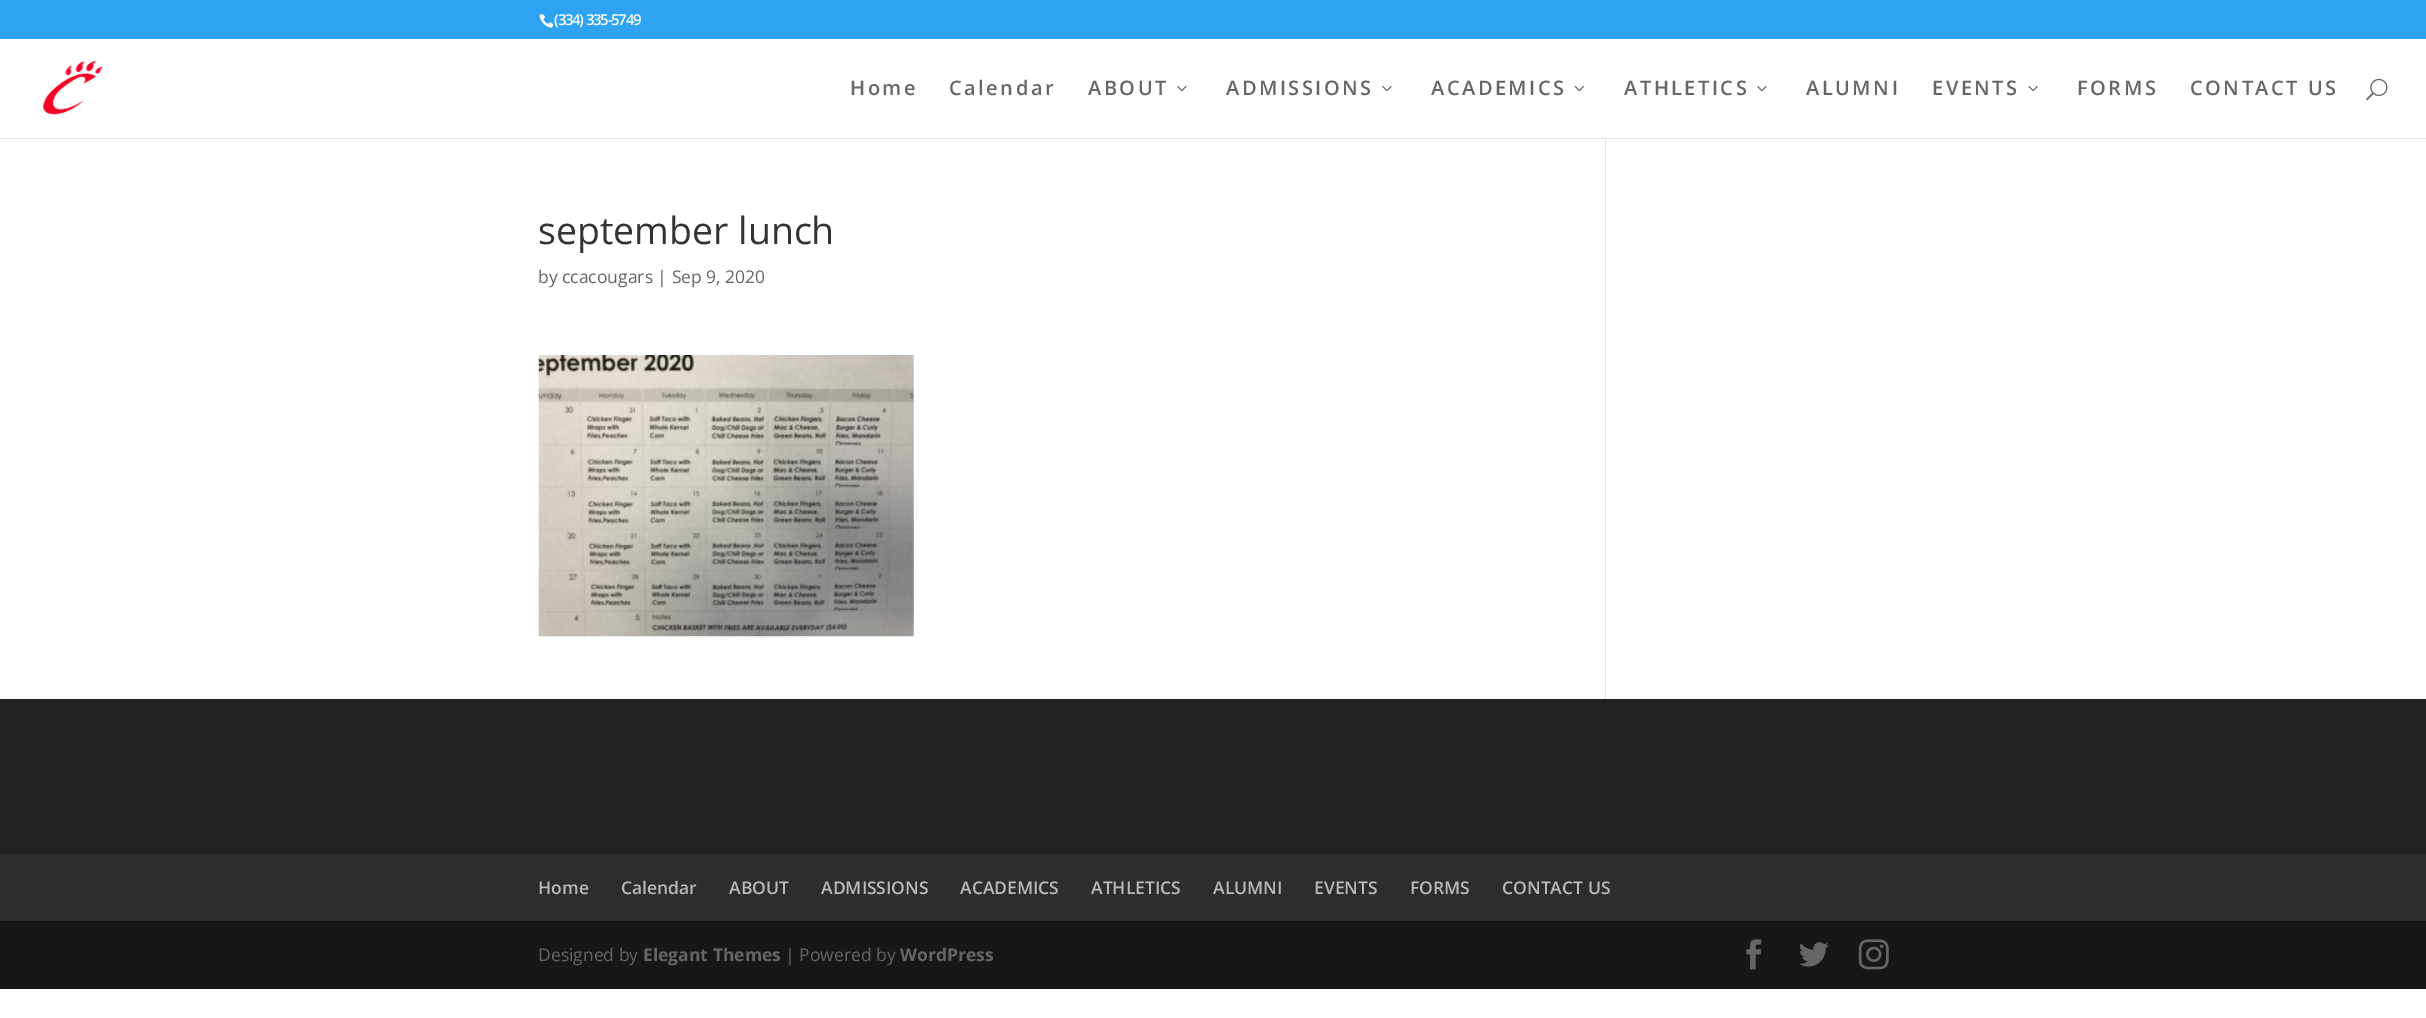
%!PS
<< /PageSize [2426 1018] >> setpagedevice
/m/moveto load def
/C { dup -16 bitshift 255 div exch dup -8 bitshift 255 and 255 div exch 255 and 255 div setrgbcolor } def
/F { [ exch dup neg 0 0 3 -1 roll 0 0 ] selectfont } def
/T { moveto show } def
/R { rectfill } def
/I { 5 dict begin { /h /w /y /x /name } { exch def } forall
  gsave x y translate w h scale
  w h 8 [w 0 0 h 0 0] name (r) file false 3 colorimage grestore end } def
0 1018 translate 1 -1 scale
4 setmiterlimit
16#FFFFFF C
0 0 2426 1018 R
16#2EA3F2 C
0 0 2426 39 R
(1.rgb) 539 14 15 14 I
/OpenSans-SemiBold 15 F
16#FFFFFF C
554 25 m -1.25 0 (\(334\) 335-5749) ashow
16#E6E6E6 C
0 138 2426 1 R
(2.rgb) 43 60 61 55 I
/OpenSans-SemiBold 20 F
16#666666 C
850 95 m 2.5 0 (Home) ashow
949 95 m 2.5 0 (Calendar) ashow
1088 95 m 2.5 0 (ABOUT) ashow
(3.rgb) 1177 86 10 6 I
1226 95 m 2.5 0 (ADMISSIONS) ashow
(3.rgb) 1382 86 10 6 I
1431 95 m 2.5 0 (ACADEMICS) ashow
(4.rgb) 1574 86 10 6 I
1624 95 m 2.5 0 (ATHLETICS) ashow
(3.rgb) 1757 86 10 6 I
1806 95 m 2.5 0 (ALUMNI) ashow
1932 95 m 2.5 0 (EVENTS) ashow
(5.rgb) 2028 86 10 6 I
2077 95 m 2.5 0 (FORMS) ashow
2190 95 m 2.5 0 (CONTACT US) ashow
(6.rgb) 2366 78 22 23 I
/OpenSans-Regular 37.5 F
16#333333 C
(september lunch) 538 244 T
/OpenSans-Regular 17.5 F
16#666666 C
(by ccacougars | Sep 9, 2020) 538 283 T
(7.rgb) 538 355 376 282 I
16#E2E2E2 C
1605 139 1 560 R
16#222222 C
0 699 2426 155 R
16#2D2D2D C
0 854 2426 67 R
/OpenSans-SemiBold 17.5 F
16#BBBBBB C
(Home) 538 894 T
(Calendar) 621 894 T
(ABOUT) 729 894 T
(ADMISSIONS) 821 894 T
(ACADEMICS) 960 894 T
(ATHLETICS) 1091 894 T
(ALUMNI) 1213 894 T
(EVENTS) 1314 894 T
(FORMS) 1410 894 T
(CONTACT US) 1502 894 T
16#171717 C
0 921 2426 68 R
/OpenSans-Regular 17.5 F
16#666666 C
(Designed by) 538 961 T
/OpenSans-Bold 17.5 F
(Elegant Themes) 643 961 T
/OpenSans-Regular 17.5 F
(| Powered by) 785 961 T
/OpenSans-Bold 17.5 F
(WordPress) 900 961 T
(8.rgb) 1746 939 16 31 I
(9.rgb) 1799 942 30 25 I
(10.rgb) 1858 939 31 31 I
showpage
